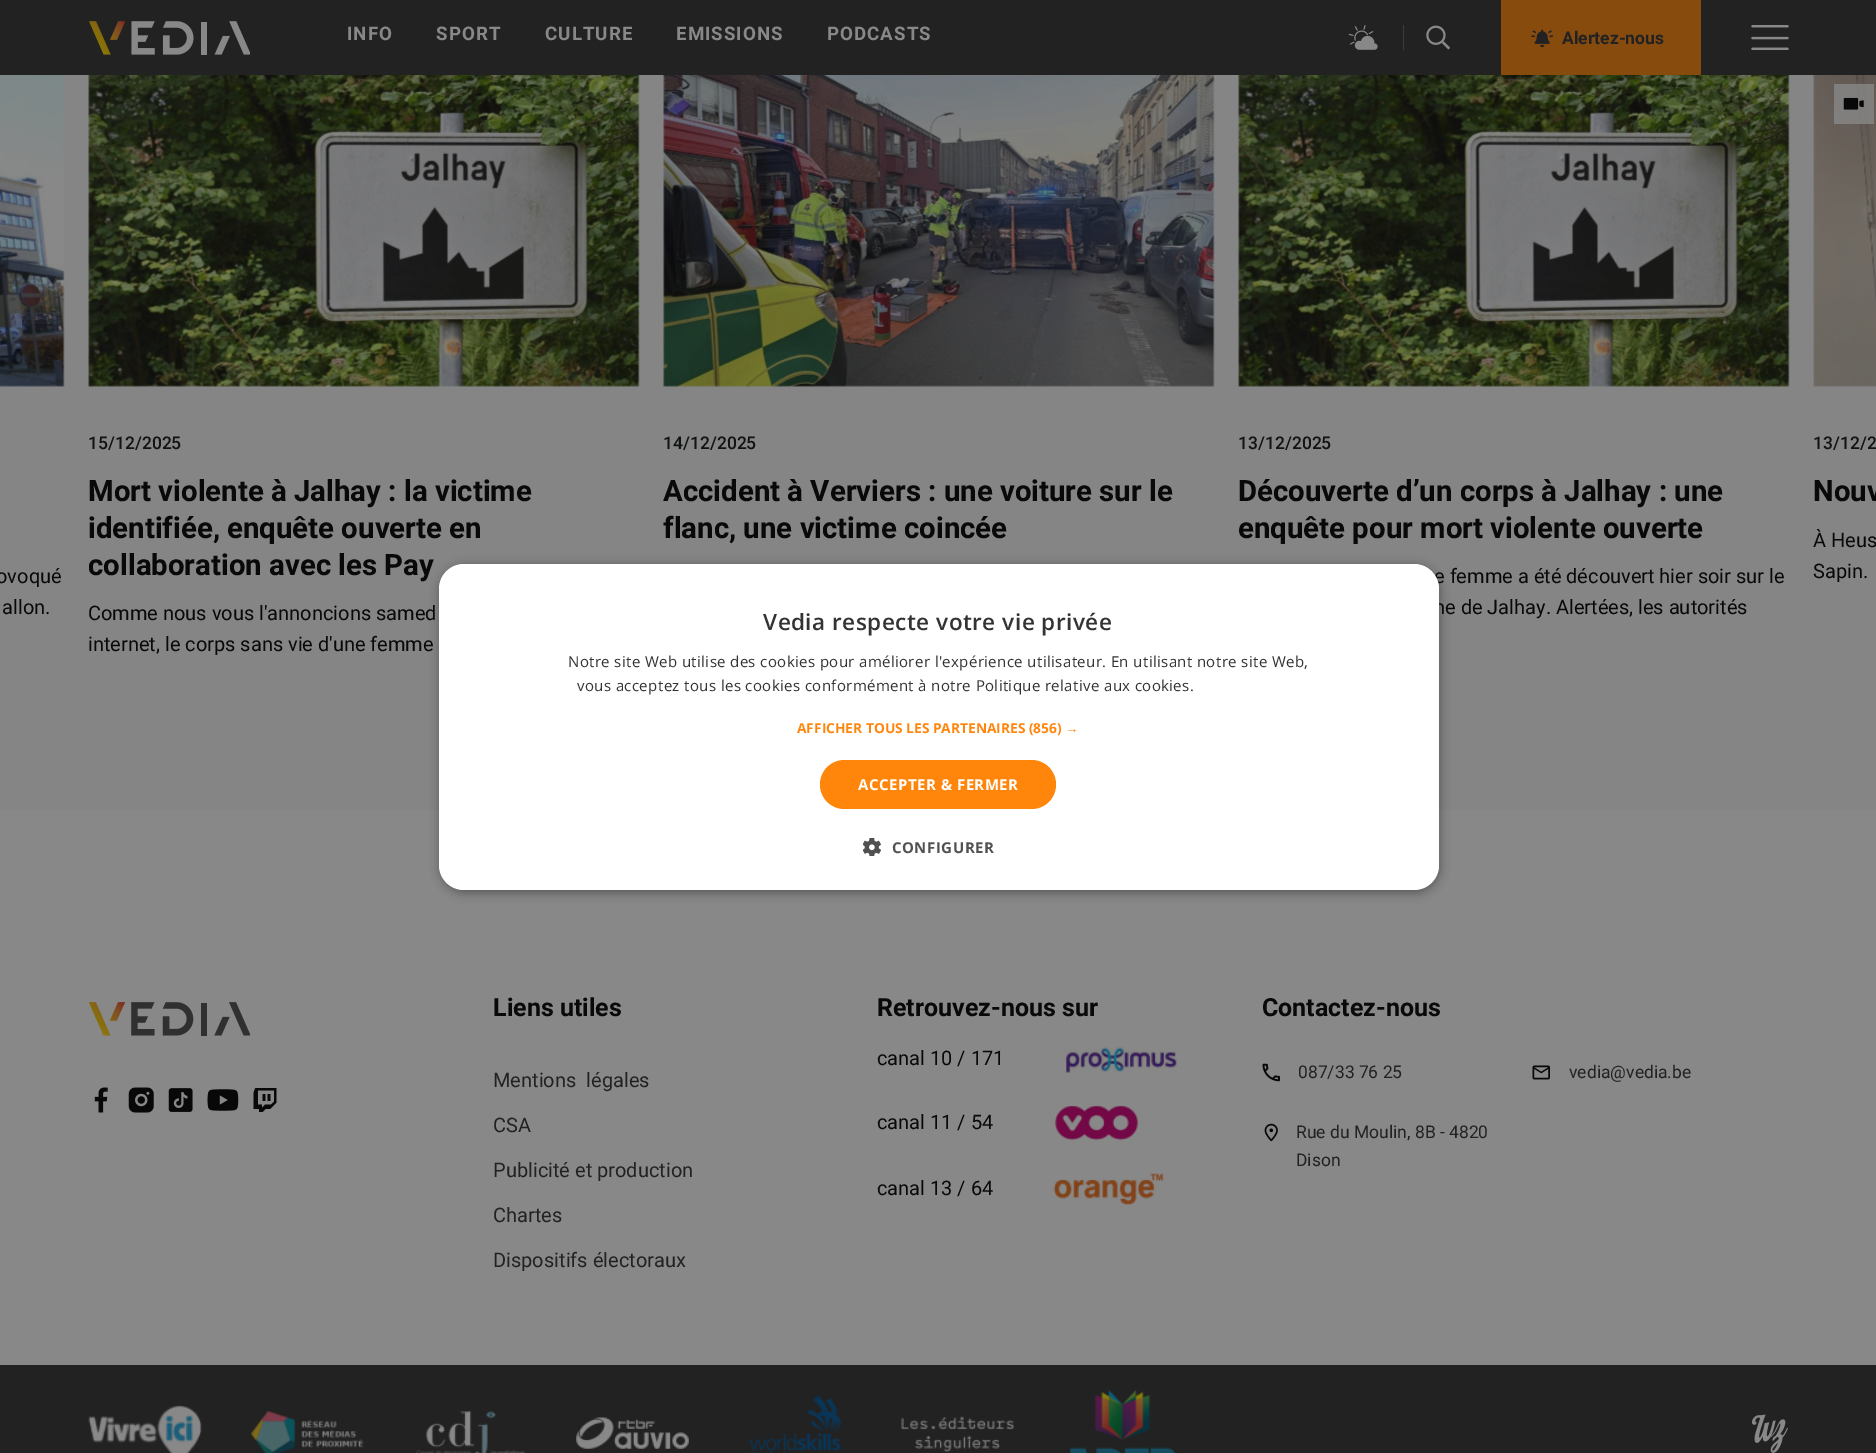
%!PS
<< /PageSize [1876 1453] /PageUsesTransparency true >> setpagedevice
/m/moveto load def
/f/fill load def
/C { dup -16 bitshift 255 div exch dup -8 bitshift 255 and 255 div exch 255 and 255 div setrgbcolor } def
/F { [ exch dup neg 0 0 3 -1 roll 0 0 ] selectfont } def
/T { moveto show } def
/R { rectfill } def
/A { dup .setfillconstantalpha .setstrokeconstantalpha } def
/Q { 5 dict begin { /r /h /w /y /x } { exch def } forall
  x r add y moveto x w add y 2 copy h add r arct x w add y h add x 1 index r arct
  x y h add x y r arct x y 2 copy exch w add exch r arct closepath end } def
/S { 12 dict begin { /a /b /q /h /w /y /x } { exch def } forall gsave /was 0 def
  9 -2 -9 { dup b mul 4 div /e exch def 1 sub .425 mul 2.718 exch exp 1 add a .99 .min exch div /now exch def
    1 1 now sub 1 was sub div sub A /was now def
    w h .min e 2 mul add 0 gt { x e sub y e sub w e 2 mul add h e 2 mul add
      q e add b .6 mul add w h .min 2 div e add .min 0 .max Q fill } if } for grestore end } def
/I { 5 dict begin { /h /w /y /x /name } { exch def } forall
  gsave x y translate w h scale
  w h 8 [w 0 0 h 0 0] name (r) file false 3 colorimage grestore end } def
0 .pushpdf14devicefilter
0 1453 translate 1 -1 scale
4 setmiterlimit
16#888888 C
0 0 1876 1453 R
16#222222 C
0 0 1876 75 R
(1.rgb) 89 21 161 34 I
/Roboto-Bold 18.75 F
16#888888 C
347 40 m 1 0 (INFO) ashow
436 40 m 1 0 (SPORT) ashow
545 40 m 1 0 (CULTURE) ashow
676 40 m 1 0 (EMISSIONS) ashow
827 40 m 1 0 (PODCASTS) ashow
(2.rgb) 1348 25 30 25 I
16#3C3C3C C
1403 25 1 25 R
(3.rgb) 1426 25 24 25 I
16#884B0E C
1501 0 200 75 R
(4.rgb) 1531 29 23 19 I
/Roboto-Bold 17.5 F
16#222222 C
(Alertez-nous) 1562 44 T
(5.rgb) 1751 25 38 25 I
16#858586 C
0 75 1876 735 R
(6.rgb) 88 75 552 312 I
/Roboto-Medium 17.5 F
16#121314 C
(15/12/2025) 88 449 T
/Roboto-Bold 29.4 F
16#090909 C
(Mort violente à Jalhay : la victime) 88 501 T
(identifiée, enquête ouverte en) 88 538 T
(collaboration avec les Pay) 88 575 T
/Roboto-Regular 20 F
(Comme nous vous l'annoncions samed) 88 620 T
(internet, le corps sans vie d'une femme) 88 651 T
(7.rgb) 663 75 552 312 I
/Roboto-Medium 17.5 F
16#121314 C
(14/12/2025) 663 449 T
/Roboto-Bold 29.4 F
16#090909 C
(Accident à Verviers : une voiture sur le) 663 501 T
(flanc, une victime coincée) 663 538 T
(8.rgb) 1238 75 552 312 I
/Roboto-Medium 17.5 F
16#121314 C
(13/12/2025) 1238 449 T
/Roboto-Bold 29.4 F
16#090909 C
(Découverte d’un corps à Jalhay : une) 1238 501 T
(enquête pour mort violente ouverte) 1238 538 T
/Roboto-Regular 20 F
(e femme a été découvert hier soir sur le) 1434 583 T
(ne de Jalhay. Alertées, les autorités) 1434 614 T
(9.rgb) 1813 75 63 312 I
0.8 A
16#888888 C
1834 84 40 40 R
1 A
(10.rgb) 1843 97 21 13 I
/Roboto-Medium 17.5 F
16#121314 C
(13/12/2) 1813 449 T
/Roboto-Bold 29.4 F
16#090909 C
(Nouv) 1813 501 T
/Roboto-Regular 20 F
(À Heus) 1813 547 T
(Sapin.) 1813 578 T
(11.rgb) 0 75 65 312 I
(ovoqué) -4 583 T
(allon.) 2 614 T
(12.rgb) 89 1002 161 34 I
(13.rgb) 94 1087 14 26 I
(14.rgb) 128 1087 26 26 I
(15.rgb) 168 1088 25 24 I
(16.rgb) 207 1089 32 22 I
(17.rgb) 253 1088 24 24 I
/Roboto-Bold 25 F
(Liens utiles) 493 1016 T
/Roboto-Regular 20 F
16#222222 C
493 1087 m 5 0 32 (Mentions légales) widthshow
(CSA) 493 1132 T
(Publicité et production) 493 1177 T
(Chartes) 493 1222 T
(Dispositifs électoraux) 493 1267 T
/Roboto-Bold 25 F
16#090909 C
(Retrouvez-nous sur) 877 1016 T
/Roboto-Regular 20 F
(canal 10 / 171) 877 1065 T
(18.rgb) 1065 1047 112 26 I
(canal 11 / 54) 877 1129 T
(19.rgb) 1054 1105 85 36 I
(canal 13 / 64) 877 1195 T
(20.rgb) 1053 1173 111 32 I
/Roboto-Bold 25 F
(Contactez-nous) 1262 1016 T
(21.rgb) 1262 1063 18 19 I
/Roboto-Regular 17.5 F
16#222222 C
(087/33 76 25) 1298 1078 T
(22.rgb) 1532 1065 18 15 I
(vedia@vedia.be) 1569 1078 T
(23.rgb) 1264 1123 14 19 I
(Rue du Moulin, 8B - 4820) 1296 1138 T
(Dison) 1296 1166 T
0 1365 1876 88 R
(24.rgb) 88 1405 114 48 I
(25.rgb) 251 1411 113 42 I
(26.rgb) 416 1411 109 42 I
(27.rgb) 576 1417 113 32 I
(28.rgb) 749 1395 93 58 I
(29.rgb) 901 1416 113 36 I
(30.rgb) 1069 1390 107 63 I
(31.rgb) 1751 1414 37 39 I
16#000000 C
440 566 1000 327 25 5 .35 S
16#FFFFFF C
439 564 1000 326 25 Q f
/OpenSans-SemiBold 22.5 F
16#333333 C
763 630 m .5 0 (Vedia respecte votre vie privée) ashow
/OpenSans-Regular 15 F
568 667 m .38 0 (Notre site Web utilise des cookies pour améliorer l'expérience utilisateur. En utilisant notre site Web,) ashow
577 691 m .38 0 (vous acceptez tous les cookies conformément à notre Politique relative aux cookies.) ashow
/OpenSans-Bold 13.75 F
16#FF850B C
(AFFICHER TOUS LES PARTENAIRES \(856\)) 797 733 T
/LiberationSans-Bold 13.75 F
(→) 1065 733 T
820 760 236 49 24.5 Q f
/OpenSans-Bold 15 F
16#FFFFFF C
858 790 m .5 0 (ACCEPTER & FERMER) ashow
(32.rgb) 863 838 18 18 I
16#525252 C
892 853 m .5 0 (CONFIGURER) ashow
.poppdf14devicefilter showpage
